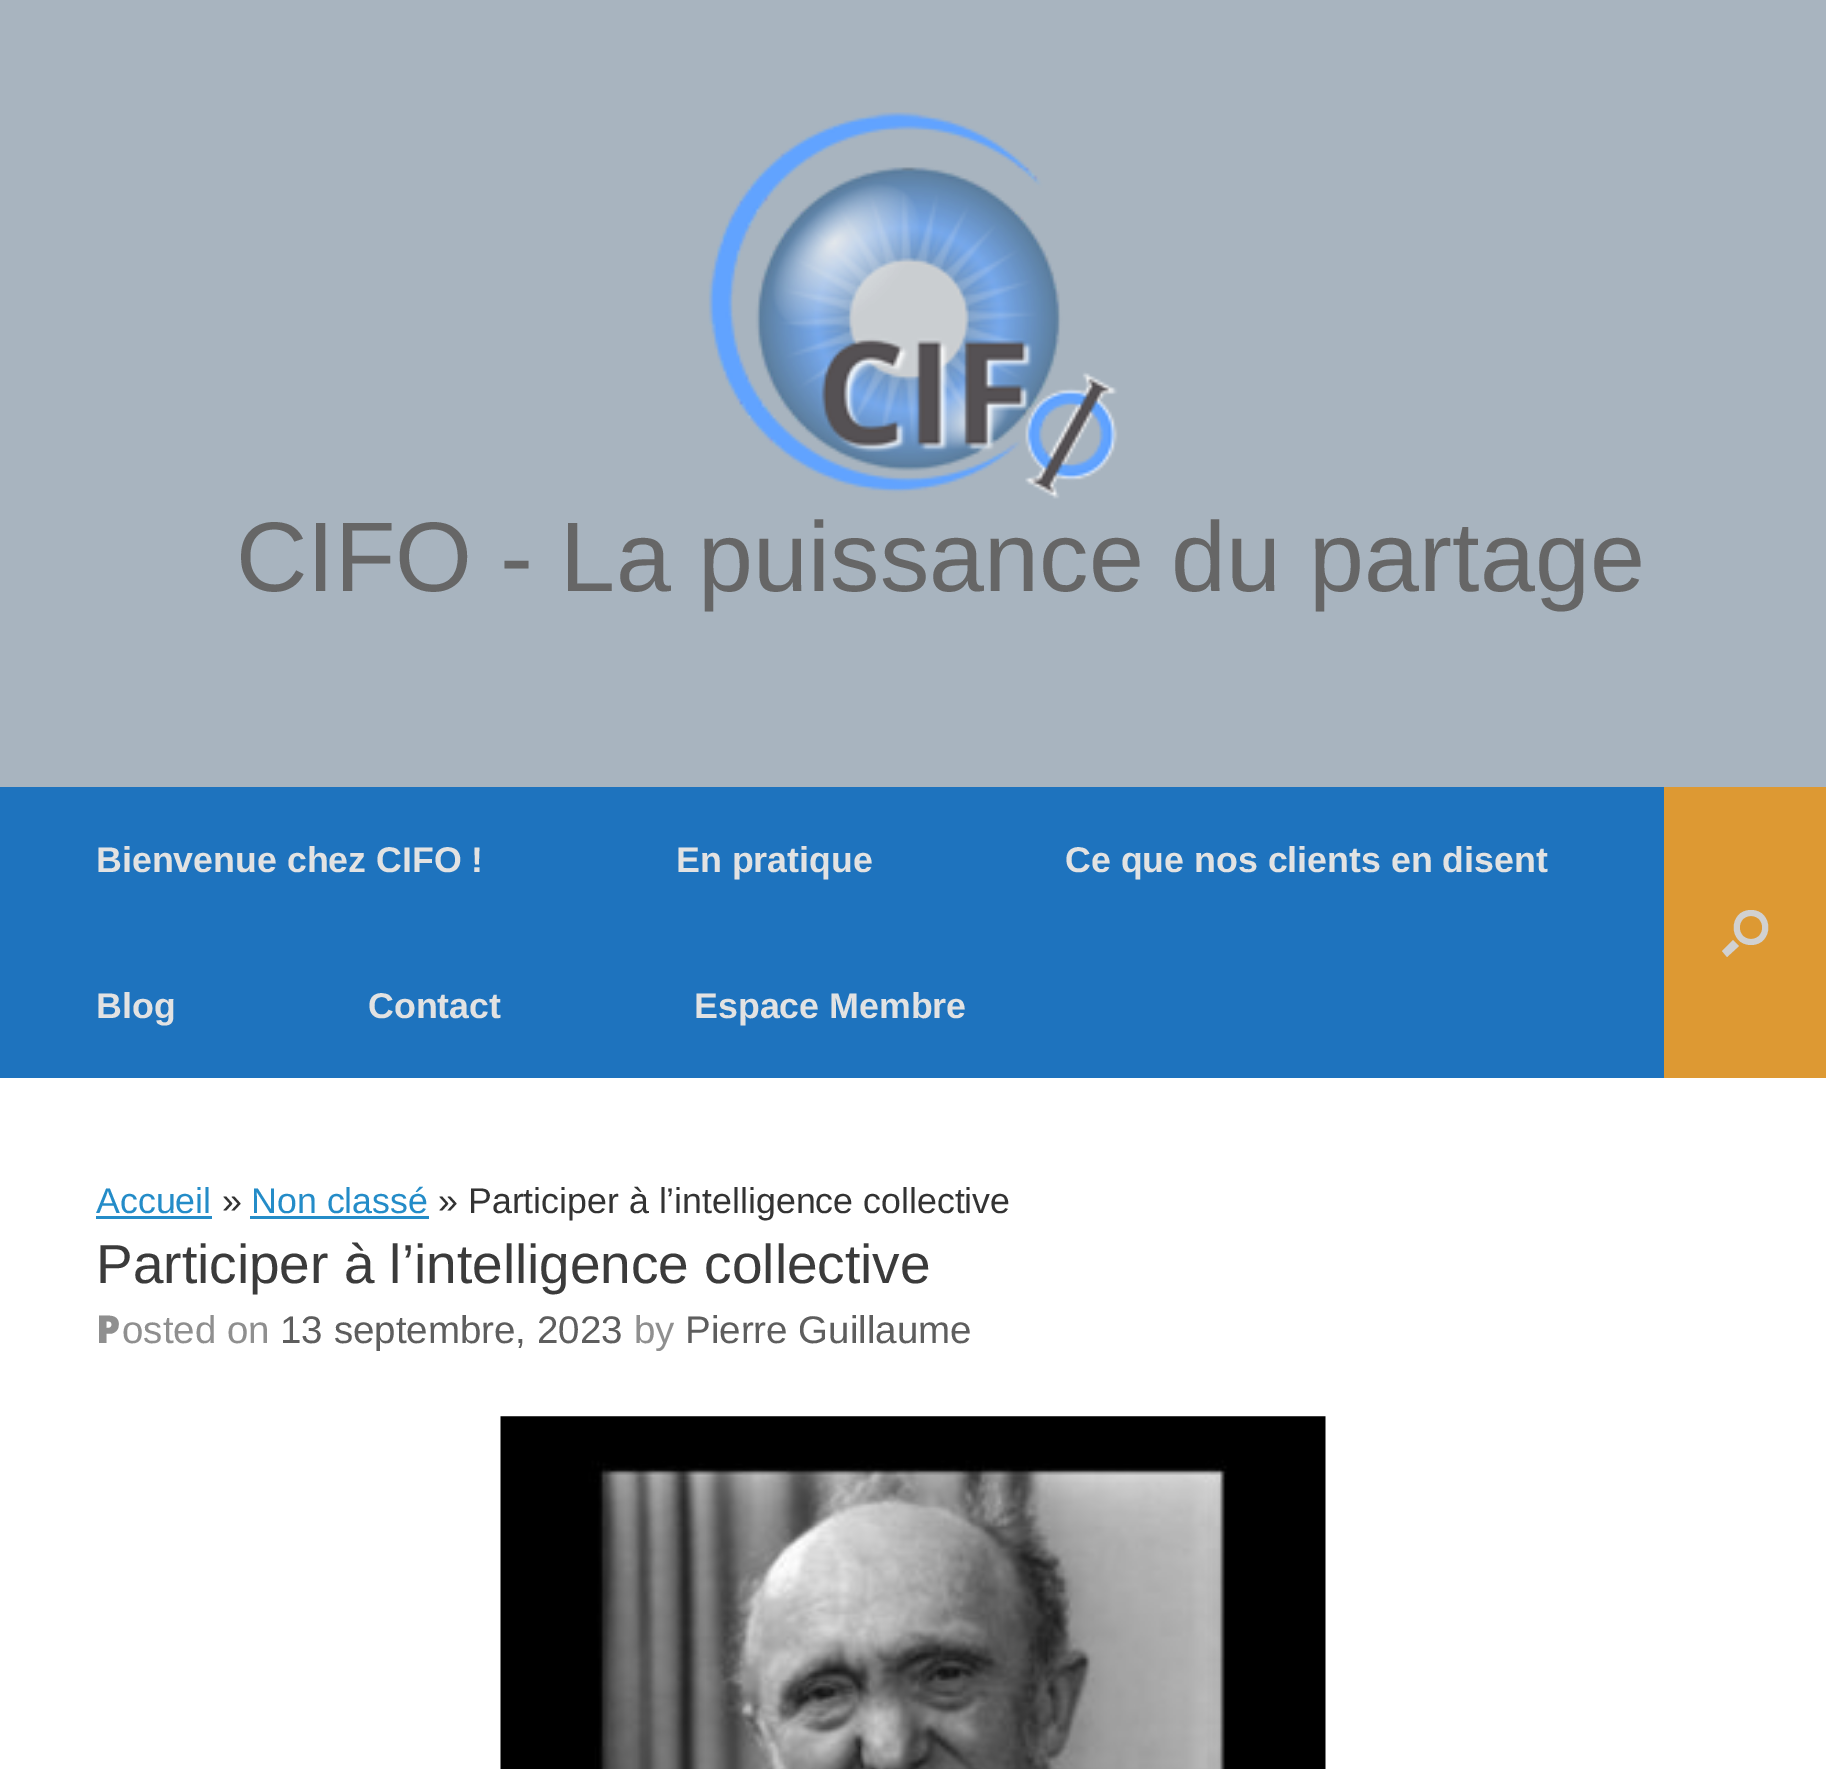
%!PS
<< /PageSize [1826 1769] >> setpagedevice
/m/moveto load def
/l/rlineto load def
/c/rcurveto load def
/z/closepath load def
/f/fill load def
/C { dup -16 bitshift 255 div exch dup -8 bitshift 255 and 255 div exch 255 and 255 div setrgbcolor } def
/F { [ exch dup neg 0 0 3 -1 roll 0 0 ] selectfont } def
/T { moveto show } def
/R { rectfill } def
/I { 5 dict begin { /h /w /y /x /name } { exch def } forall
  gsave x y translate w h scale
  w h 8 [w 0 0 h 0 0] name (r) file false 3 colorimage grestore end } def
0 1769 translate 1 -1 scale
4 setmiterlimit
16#A8B4BF C
0 0 1826 1769 R
(1.rgb) 708 112 410 387 I
/LiberationSans-Regular 99 F
16#666666 C
(CIFO - La puissance du partage) 236 591 T
16#1E73BE C
0 787 1664 291 R
/LiberationSans-Bold 35.75 F
16#E2E2E2 C
(Bienvenue chez CIFO !) 96 872 T
(En pratique) 676 872 T
(Ce que nos clients en disent) 1065 872 T
(Blog) 96 1018 T
(Contact) 368 1018 T
(Espace Membre) 694 1018 T
16#DD9933 C
1664 787 162 291 R
16#D1D1D1 C
1751 916 m 15 0 15 23 0 23 c -15 0 -15 -23 0 -23 c z 1751 910 m -23 0 -23 35 0 35 c 23 0 23 -35 0 -35 c z 1733 940 m 6 6 l -12 11 l -5 -6 l z f
16#FFFFFF C
0 1078 1826 691 R
/LiberationSans-Regular 35.75 F
16#248CC8 C
(Accueil) 96 1213 T
96 1216 116 3 R
16#333333 C
(») 222 1213 T
16#248CC8 C
(Non classé) 251 1213 T
250 1216 179 3 R
16#333333 C
(» Participer à l’intelligence collective) 438 1213 T
/LiberationSans-Regular 55 F
16#3B3B3B C
(Participer à l’intelligence collective) 96 1283 T
/NotoSans-Black 38.5 F
16#8F8F8F C
(P) 96 1343 T
/LiberationSans-Regular 38.5 F
(osted on) 122 1343 T
16#5E5E5E C
(13 septembre, 2023) 280 1343 T
16#8F8F8F C
(by) 634 1343 T
16#5E5E5E C
(Pierre Guillaume) 685 1343 T
(2.rgb) 500 1416 826 353 I
showpage
